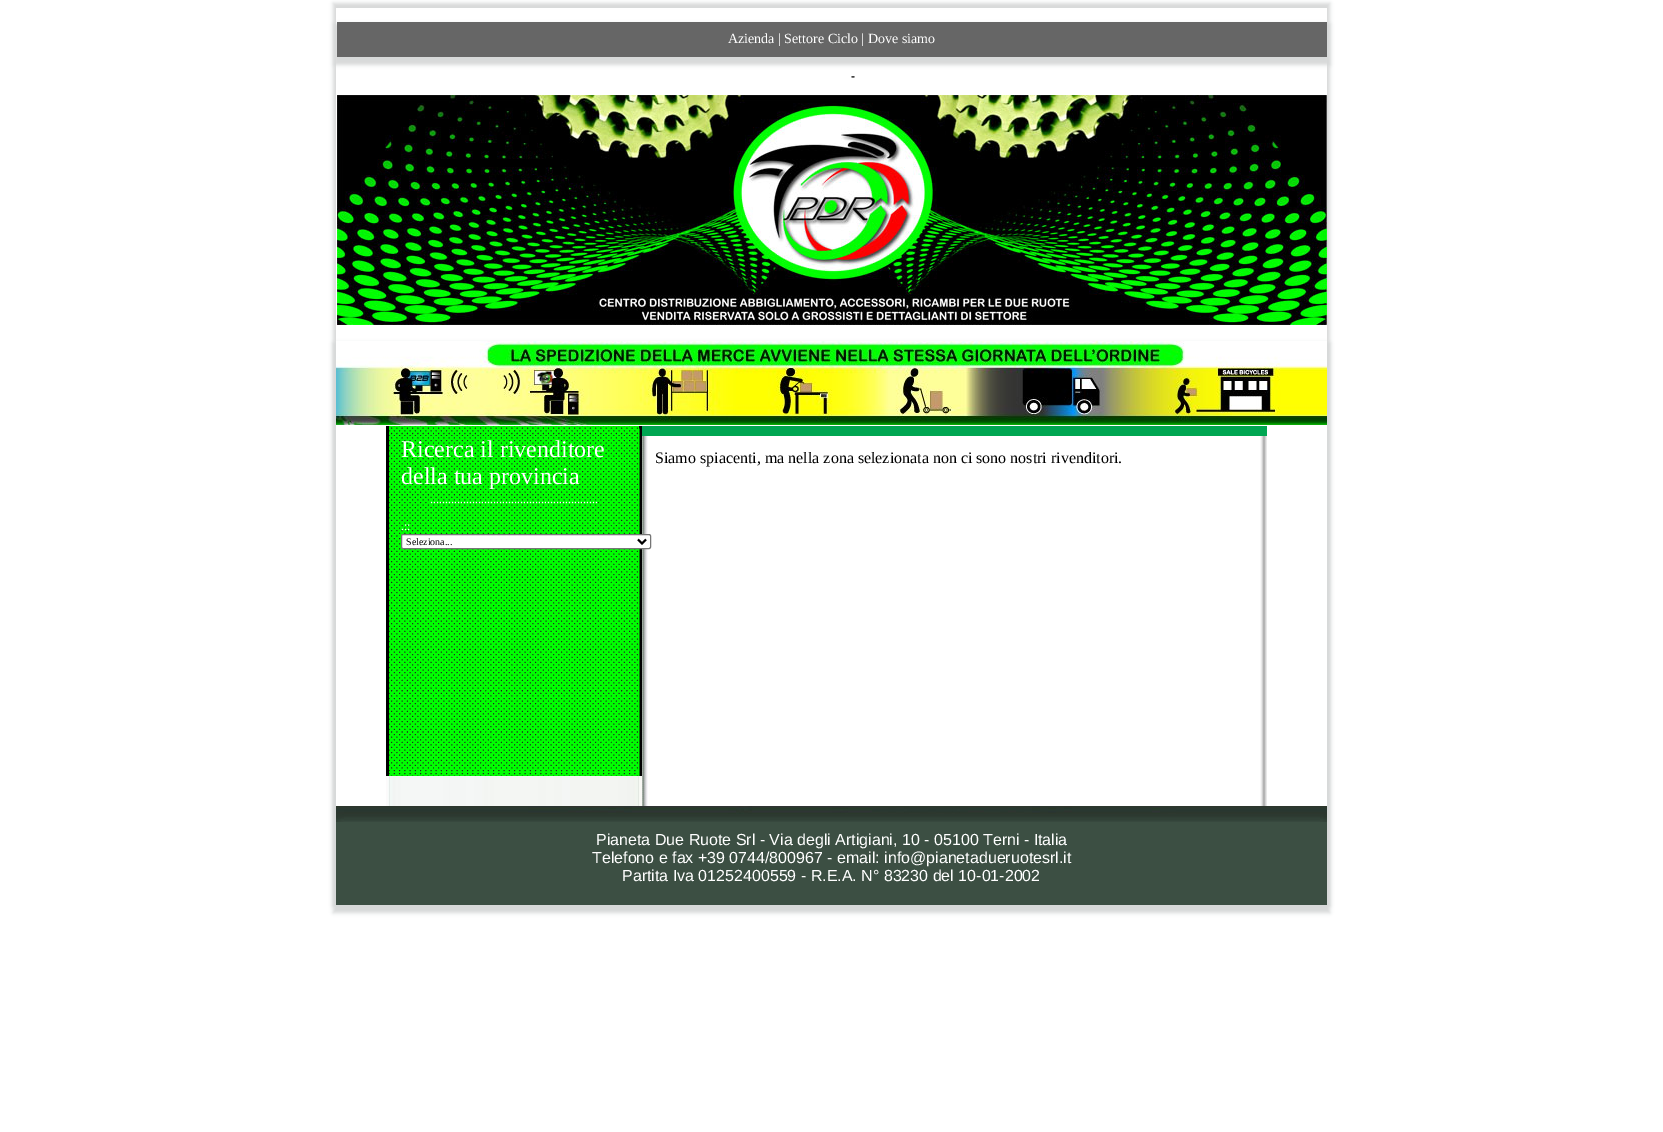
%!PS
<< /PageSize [1663 1132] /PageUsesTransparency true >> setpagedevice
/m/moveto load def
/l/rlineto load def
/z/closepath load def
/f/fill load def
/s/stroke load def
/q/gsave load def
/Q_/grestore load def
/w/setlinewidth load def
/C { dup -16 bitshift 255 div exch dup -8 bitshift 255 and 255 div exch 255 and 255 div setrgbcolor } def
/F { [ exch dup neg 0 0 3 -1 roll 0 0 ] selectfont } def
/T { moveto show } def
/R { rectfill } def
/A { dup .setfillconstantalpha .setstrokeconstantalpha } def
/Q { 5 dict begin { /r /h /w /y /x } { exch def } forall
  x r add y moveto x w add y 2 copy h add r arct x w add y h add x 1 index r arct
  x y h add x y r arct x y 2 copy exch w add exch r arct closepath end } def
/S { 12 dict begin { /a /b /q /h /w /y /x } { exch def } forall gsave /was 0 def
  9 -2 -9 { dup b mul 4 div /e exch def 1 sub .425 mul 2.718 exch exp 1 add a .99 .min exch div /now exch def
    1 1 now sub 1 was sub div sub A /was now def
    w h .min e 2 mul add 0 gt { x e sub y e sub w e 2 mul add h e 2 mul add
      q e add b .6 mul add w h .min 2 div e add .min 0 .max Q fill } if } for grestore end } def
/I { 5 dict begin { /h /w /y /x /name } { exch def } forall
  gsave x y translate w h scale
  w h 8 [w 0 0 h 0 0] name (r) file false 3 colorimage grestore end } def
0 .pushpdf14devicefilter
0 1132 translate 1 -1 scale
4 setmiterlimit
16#FFFFFF C
0 0 1663 1132 R
q
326 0 m 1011 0 l 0 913 l -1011 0 l z 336 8 m 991 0 l 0 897 l -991 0 l z eoclip newpath
16#D6D8D8 C
333 3 997 903 0 2 1 S
Q_
16#D6D8D8 C
334 24 996 41 0 2 1 S
16#666666 C
337 22 990 35 R
/LiberationSerif-Regular 14 F
16#FFFFFF C
(Azienda | Settore Ciclo | Dove siamo) 728 43 T
/LiberationSans-Bold 12 F
16#000000 C
(-) 851 80 T
(1.rgb) 337 95 990 230 I
q
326 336 m 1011 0 l 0 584 l -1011 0 l z 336 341 m 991 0 l 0 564 l -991 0 l z eoclip newpath
16#D6D8D8 C
333 343 997 570 0 2 1 S
Q_
(2.rgb) 336 341 991 84 I
(3.rgb) 386 776 256 30 I
(4.rgb) 386 426 256 350 I
/LiberationSerif-Regular 24 F
16#FFFFFF C
(Ricerca il rivenditore) 401 457 T
(della tua provincia) 401 484 T
/LiberationSerif-Regular 12 F
(........................................................) 430 503 T
(.::) 401 530 T
(5.rgb) 642 436 625 370 I
401.5 534.5 249 14 1.5 Q q f Q_
16#767676 C
s
16#000000 C
2 w
638 539.5 m 4 4 l 4 -4 l s
/LiberationSerif-Regular 10 F
(Seleziona...) 406 545 T
16#00A652 C
642 426 625 10 R
/LiberationSerif-Regular 16 F
16#000000 C
(Siamo spiacenti, ma nella zona selezionata non ci sono nostri rivenditori.) 655 463 T
(6.rgb) 336 806 991 16 I
16#3C4F43 C
336 822 991 83 R
/LiberationSans-Regular 16 F
16#FFFFFF C
(Pianeta Due Ruote Srl - Via degli Artigiani, 10 - 05100 Terni - Italia) 596 845 T
(Telefono e fax +39 0744/800967 - email: info@pianetadueruotesrl.it) 592 863 T
(Partita Iva 01252400559 - R.E.A. N° 83230 del 10-01-2002) 622 881 T
.poppdf14devicefilter showpage
